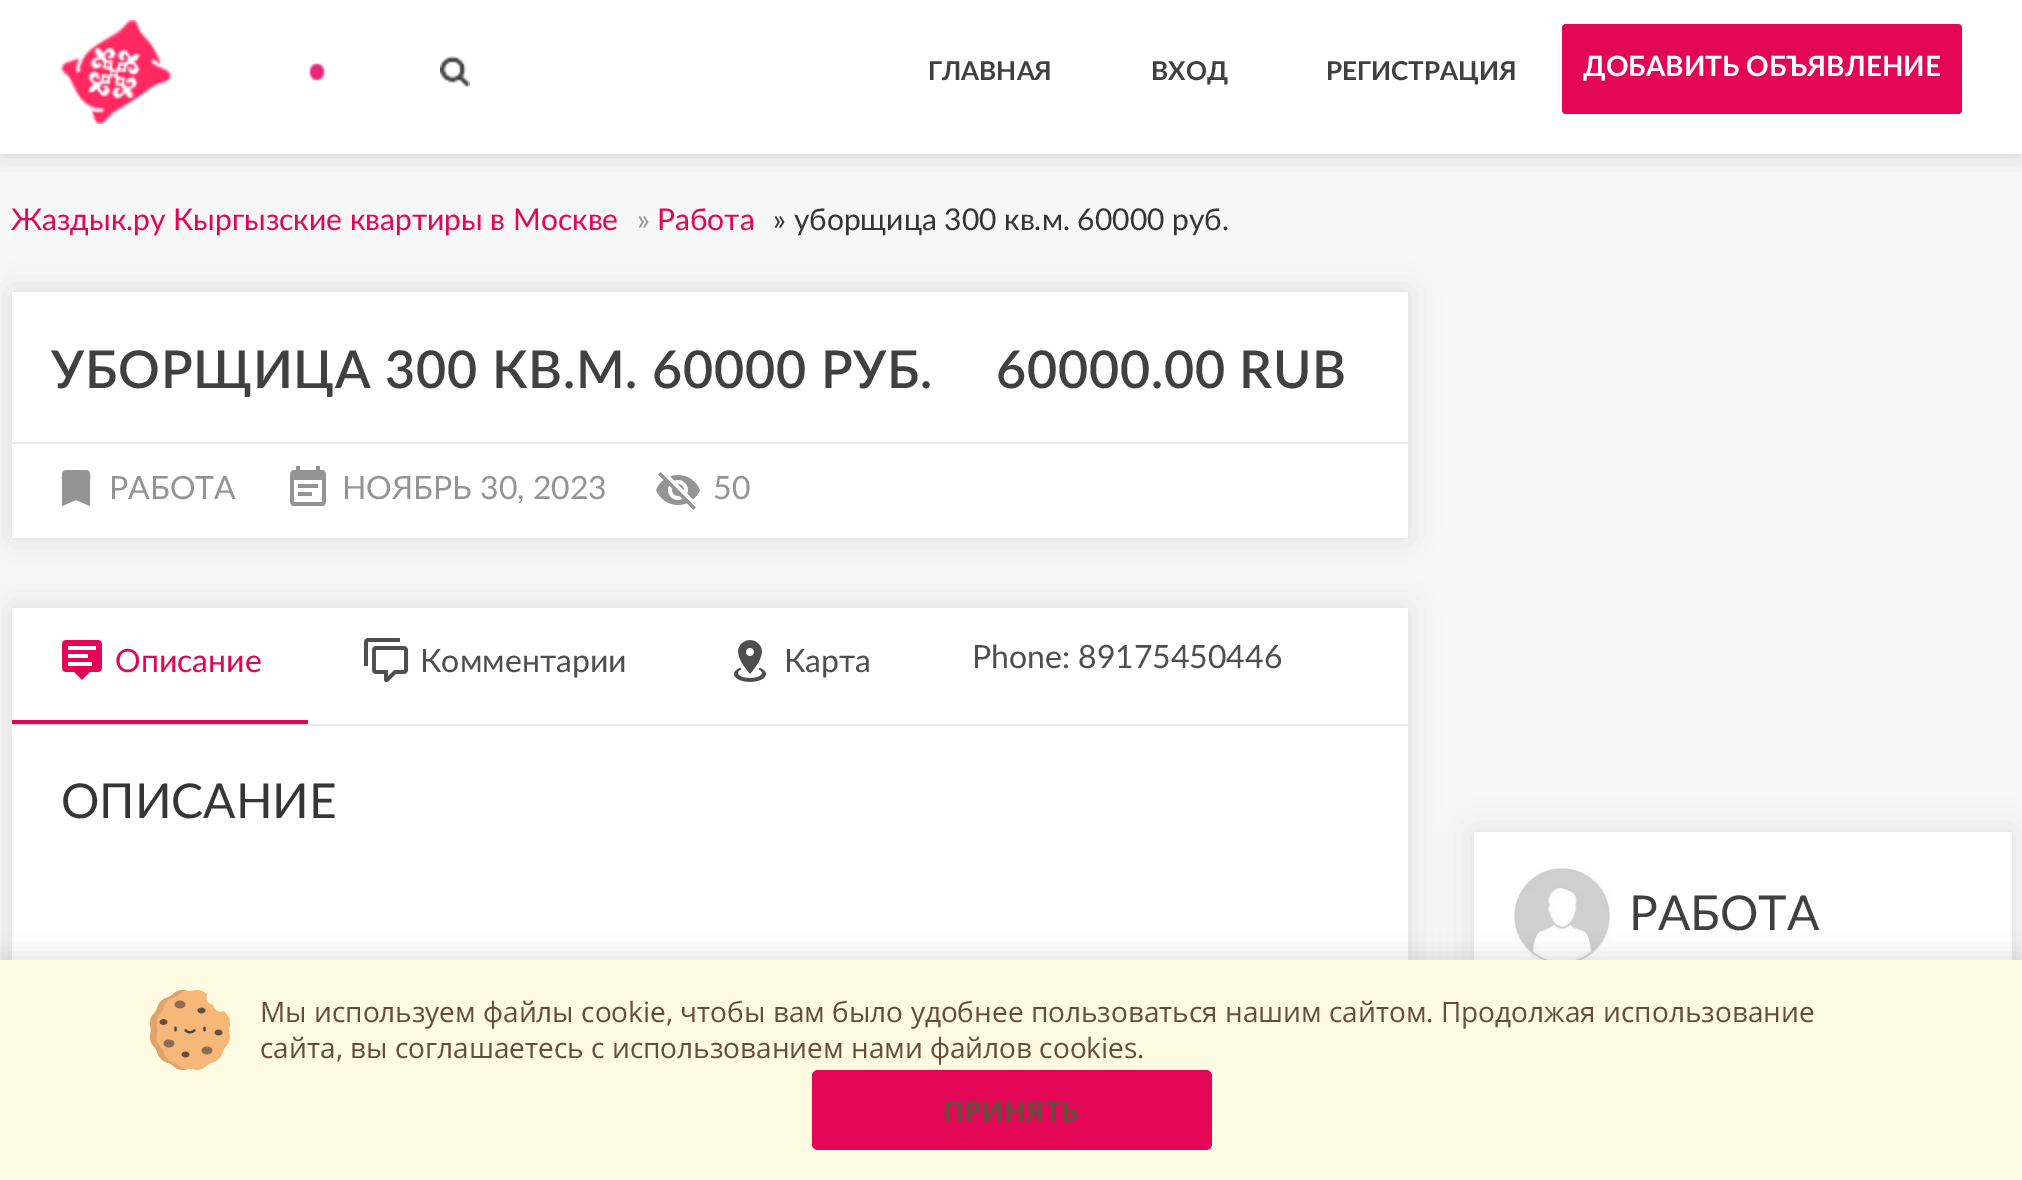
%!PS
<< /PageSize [2022 1180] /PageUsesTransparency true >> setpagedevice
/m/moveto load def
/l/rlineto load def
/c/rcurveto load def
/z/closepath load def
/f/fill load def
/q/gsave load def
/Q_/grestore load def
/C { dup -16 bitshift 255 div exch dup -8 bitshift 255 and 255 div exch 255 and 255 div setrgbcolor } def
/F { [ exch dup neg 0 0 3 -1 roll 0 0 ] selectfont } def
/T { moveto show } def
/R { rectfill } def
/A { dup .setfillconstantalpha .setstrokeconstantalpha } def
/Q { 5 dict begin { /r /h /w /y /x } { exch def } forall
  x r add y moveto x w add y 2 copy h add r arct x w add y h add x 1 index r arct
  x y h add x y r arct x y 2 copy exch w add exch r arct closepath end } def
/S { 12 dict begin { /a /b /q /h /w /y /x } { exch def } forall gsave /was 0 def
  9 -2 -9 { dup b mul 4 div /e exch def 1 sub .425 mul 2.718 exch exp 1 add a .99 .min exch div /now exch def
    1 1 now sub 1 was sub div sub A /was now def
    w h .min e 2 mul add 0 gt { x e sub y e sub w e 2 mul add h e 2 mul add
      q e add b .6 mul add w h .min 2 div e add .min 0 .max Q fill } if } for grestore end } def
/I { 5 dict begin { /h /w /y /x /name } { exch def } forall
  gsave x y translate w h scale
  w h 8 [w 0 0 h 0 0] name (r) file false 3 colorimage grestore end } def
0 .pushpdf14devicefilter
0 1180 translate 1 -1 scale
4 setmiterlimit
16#F8F7F7 C
0 0 2022 1180 R
16#303030 C
0 0 2022 154 0 6 .11 S
16#FFFFFF C
0 0 2022 154 R
q
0 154 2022 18 rectclip
16#6D6D6D C
0 0 2022 154 0 16 .16 S
Q_
(1.rgb) 60 20 265 104 I
(2.rgb) 440 56 30 32 I
/Lato-Bold 26 F
16#404040 C
(ГЛАВНАЯ) 928 80 T
(ВХОД) 1151 80 T
(РЕГИСТРАЦИЯ) 1326 80 T
16#E30556 C
1562 24 400 90 4 Q f
/Lato-Bold 28 F
16#FFFFFF C
(ДОБАВИТЬ ОБЪЯВЛЕНИЕ) 1583 76 T
/Lato-Regular 30 F
16#E30556 C
(Жаздык.ру Кыргызские квартиры в Москве) 11 230 T
16#959494 C
(») 637 230 T
16#E30556 C
(Работа) 657 230 T
16#363535 C
(» уборщица 300 кв.м. 60000 руб.) 773 230 T
16#000000 C
12 292 1396 246 0 15 .1 S
16#FFFFFF C
12 292 1396 246 R
16#E7E7ED C
12 442 1396 2 R
/Lato-SemiBold 52 F
16#404040 C
51 388 m .8 0 (УБОРЩИЦА 300 КВ.М. 60000 РУБ.) ashow
996 388 m .8 0 (60000.00 RUB) ashow
16#959494 C
86 470 m -16.5 0 l -8 0 -7.5 1.5 -7.5 9.5 c 0 26.5 l 14 -6 l 14 6 l 0 -26.5 l 0 -3 1 -9.5 -4 -9.5 c z f
/Lato-Regular 32 F
(РАБОТА) 109 499 T
(3.rgb) 290 466 36 40 I
(НОЯБРЬ 30, 2023) 342 499 T
(4.rgb) 656 472 44 38 I
(50) 713 499 T
16#000000 C
12 608 1396 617 0 15 .1 S
16#FFFFFF C
12 608 1396 352 R
16#E7E7ED C
12 724 1396 2 R
16#E30556 C
12 720 296 4 R
(5.rgb) 62 640 40 40 I
(Описание) 115 672 T
(6.rgb) 363 638 46 44 I
16#4F4E4E C
(Комментарии) 420 672 T
(7.rgb) 734 640 32 42 I
(Карта) 784 672 T
(Phone: 89175450446) 972 668 T
/Lato-Regular 48 F
16#363535 C
(ОПИСАНИЕ) 61 818 T
16#6D6D6D C
1474 832 538 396 0 16 .16 S
16#FFFFFF C
1474 832 538 128 R
(8.rgb) 1514 868 96 92 I
16#404040 C
(РАБОТА) 1629 930 T
16#000000 C
0 954 2022 220 0 10 .1 S
16#FFFAE2 C
0 960 2022 220 R
(9.rgb) 150 990 80 80 I
/OpenSans-Regular 28 F
16#654D3B C
(Мы используем файлы cookie, чтобы вам было удобнее пользоваться нашим сайтом. Продолжая использование) 260 1022 T
(сайта, вы соглашаетесь c использованием нами файлов cookies.) 260 1058 T
16#E30556 C
812 1070 400 80 6 Q f
/OpenSans-Bold 28 F
16#654D3B C
(ПРИНЯТЬ) 943 1121 T
.poppdf14devicefilter showpage
